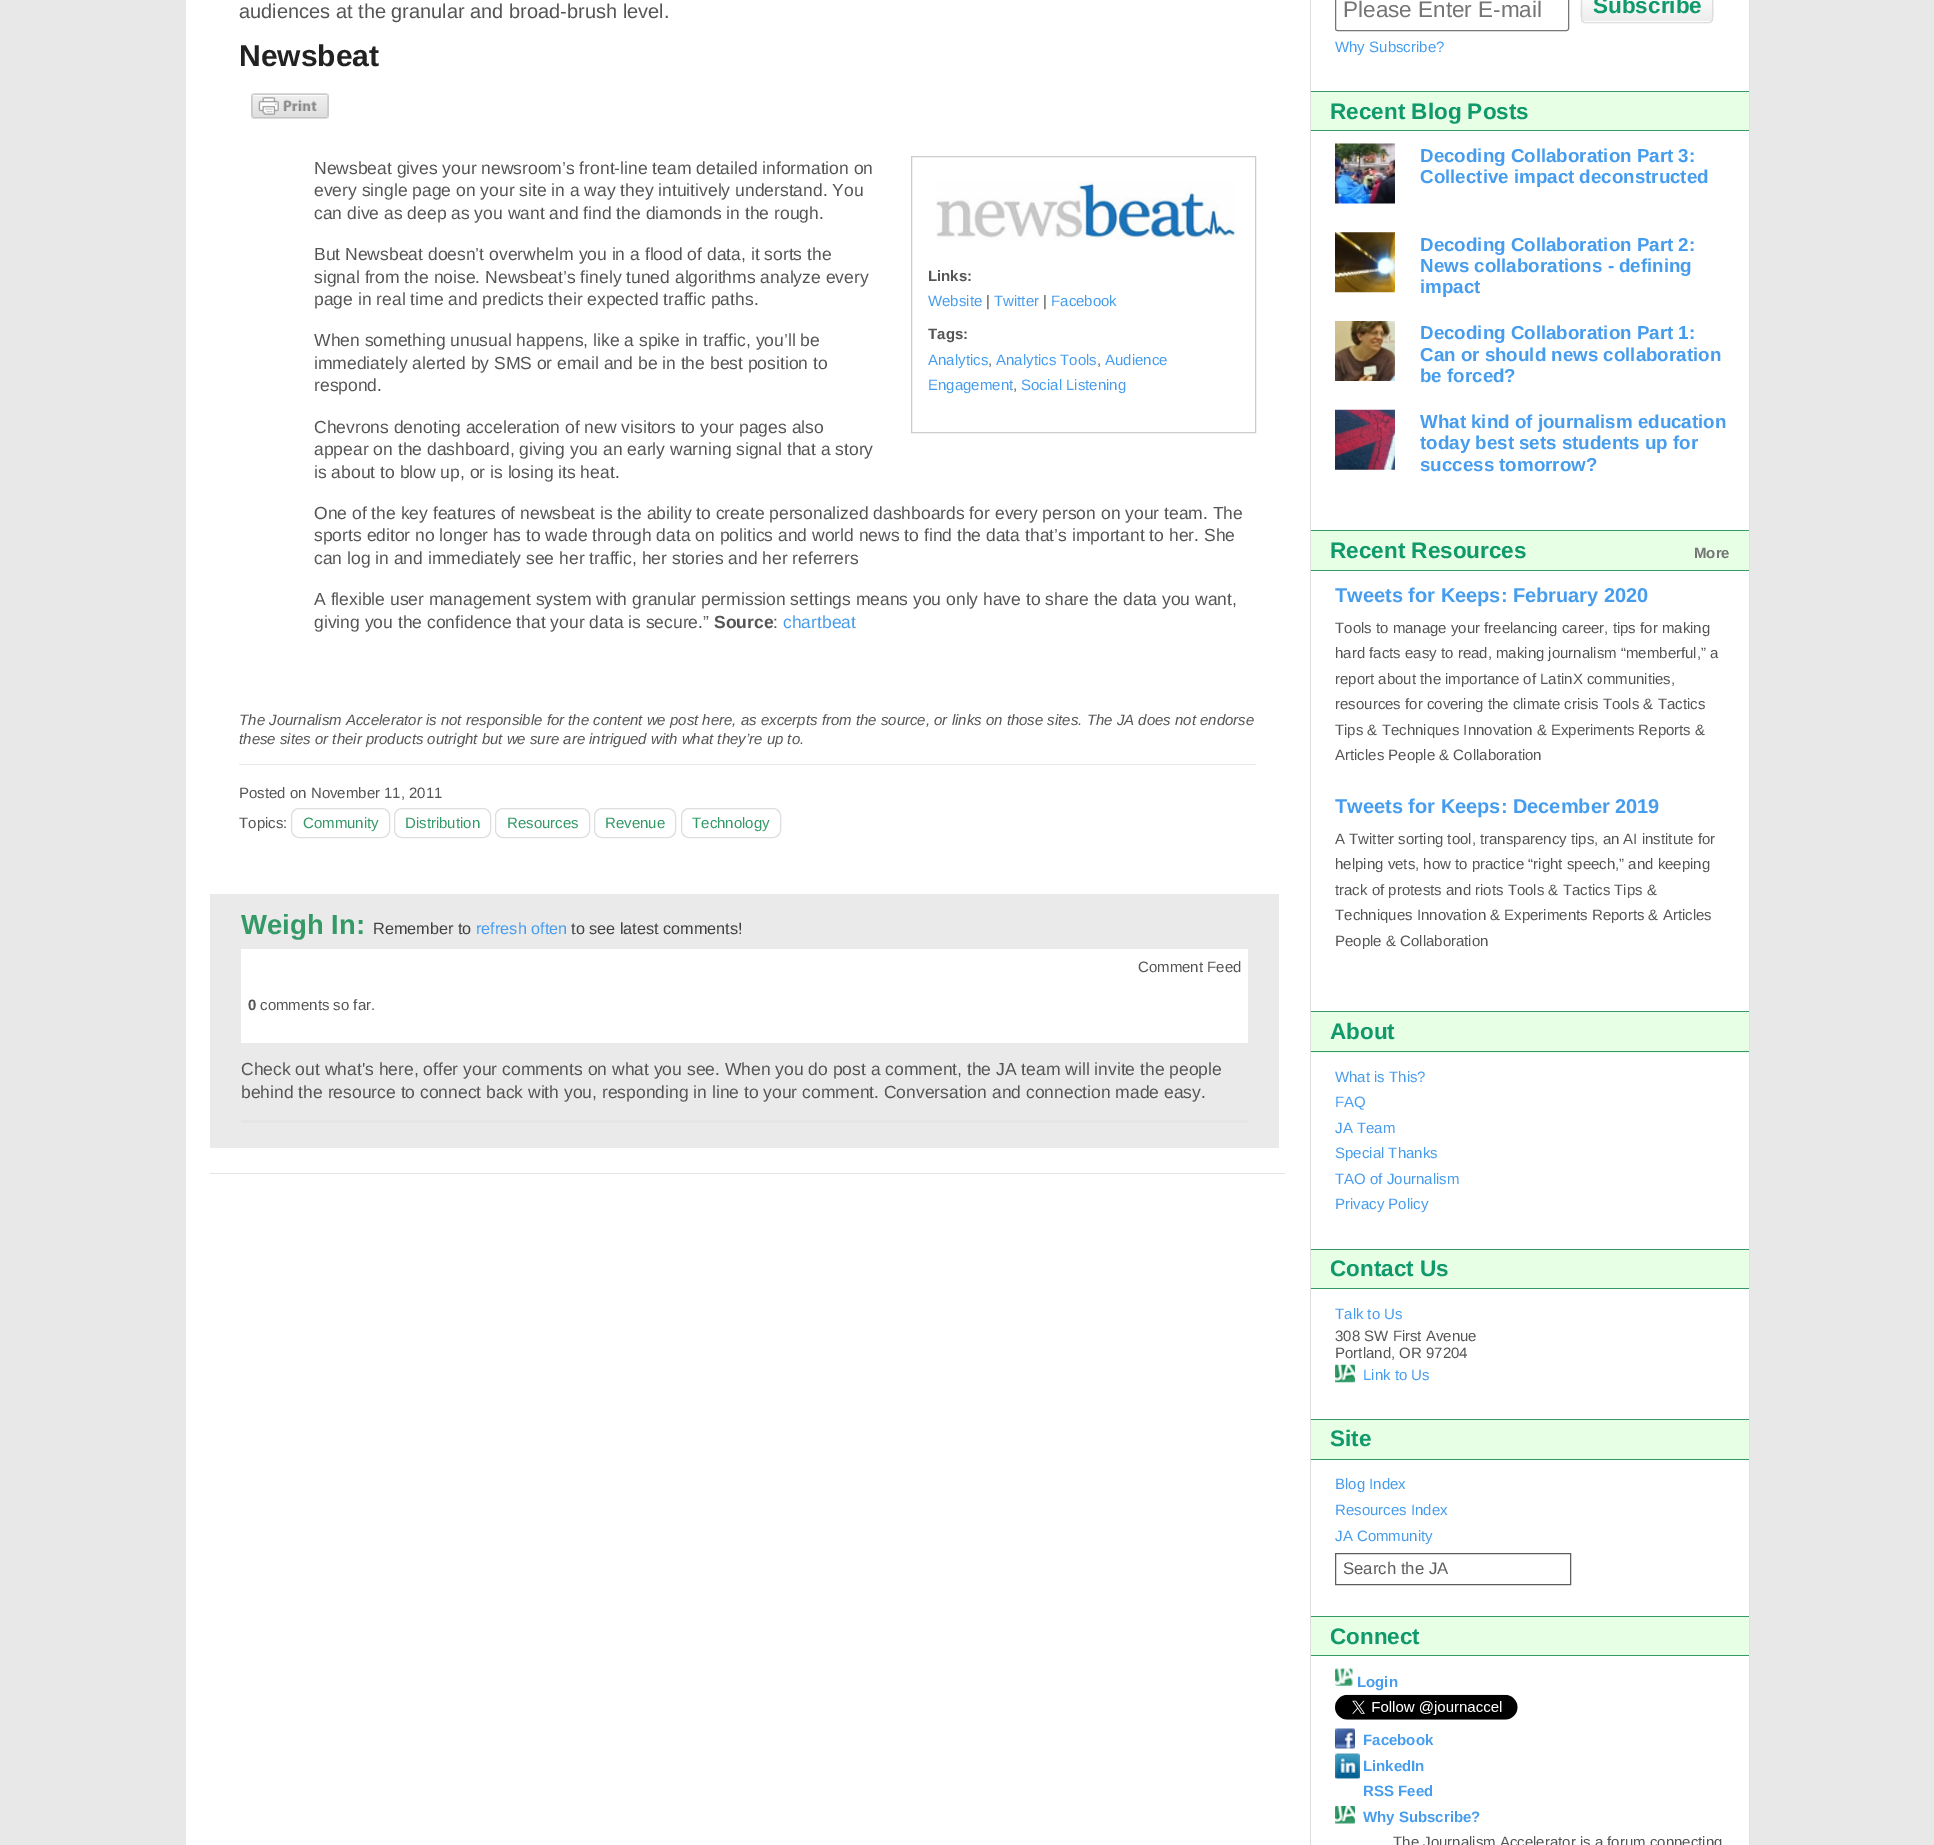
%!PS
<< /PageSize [1934 1845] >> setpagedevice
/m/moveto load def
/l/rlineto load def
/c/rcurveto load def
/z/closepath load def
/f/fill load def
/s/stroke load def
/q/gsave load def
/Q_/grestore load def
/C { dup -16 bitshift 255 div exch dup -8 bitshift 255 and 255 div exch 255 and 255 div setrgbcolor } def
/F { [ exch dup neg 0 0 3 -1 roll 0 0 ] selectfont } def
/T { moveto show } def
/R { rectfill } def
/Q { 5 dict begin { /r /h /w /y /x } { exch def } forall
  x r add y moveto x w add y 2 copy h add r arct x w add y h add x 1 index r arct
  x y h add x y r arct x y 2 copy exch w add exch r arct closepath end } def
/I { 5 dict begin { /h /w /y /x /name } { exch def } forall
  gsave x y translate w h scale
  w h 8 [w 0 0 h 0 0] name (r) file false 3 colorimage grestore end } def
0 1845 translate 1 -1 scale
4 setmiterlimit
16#E8E8E8 C
0 0 1934 1845 R
16#FFFFFF C
186 0 1563 1845 R
16#E0E0E0 C
186 -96 m 1564 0 l 0 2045 l 0 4 -3 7 -8 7 c -1548 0 l -4 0 -8 -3 -8 -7 c z 186 -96 m 1563 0 l 0 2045 l 0 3 -3 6 -7 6 c -1548 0 l -4 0 -8 -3 -8 -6 c z eofill
/LiberationSans-Regular 20 F
16#555555 C
(audiences at the granular and broad-brush level.) 239 18 T
/LiberationSans-Bold 30 F
16#222222 C
(Newsbeat) 239 66 T
(1.rgb) 251 93 78 26 I
/LiberationSans-Regular 17.5 F
16#555555 C
(Newsbeat gives your newsroom’s front-line team detailed information on) 314 174 T
(every single page on your site in a way they intuitively understand. You) 314 196 T
(can dive as deep as you want and find the diamonds in the rough.) 314 219 T
(But Newsbeat doesn’t overwhelm you in a flood of data, it sorts the) 314 260 T
(signal from the noise. Newsbeat’s finely tuned algorithms analyze every) 314 283 T
(page in real time and predicts their expected traffic paths.) 314 305 T
(When something unusual happens, like a spike in traffic, you’ll be) 314 346 T
(immediately alerted by SMS or email and be in the best position to) 314 369 T
(respond.) 314 391 T
(Chevrons denoting acceleration of new visitors to your pages also) 314 433 T
(appear on the dashboard, giving you an early warning signal that a story) 314 455 T
(is about to blow up, or is losing its heat.) 314 478 T
(One of the key features of newsbeat is the ability to create personalized dashboards for every person on your team. The) 314 519 T
(sports editor no longer has to wade through data on politics and world news to find the data that’s important to her. She) 314 541 T
(can log in and immediately see her traffic, her stories and her referrers) 314 564 T
(A flexible user management system with granular permission settings means you only have to share the data you want,) 314 605 T
(giving you the confidence that your data is secure.”) 314 628 T
/LiberationSans-Bold 17.5 F
(Source) 714 628 T
/LiberationSans-Regular 17.5 F
(:) 773 628 T
16#469CED C
(chartbeat) 783 628 T
16#CCCCCC C
911.5 156.5 344 276 rectstroke
(2.rgb) 936 181 300 59 I
/LiberationSans-Bold 15 F
16#555555 C
(Links:) 928 281 T
/LiberationSans-Regular 15 F
16#469CED C
(Website) 928 306 T
16#555555 C
(|) 986 306 T
16#469CED C
(Twitter) 994 306 T
16#555555 C
(|) 1043 306 T
16#469CED C
(Facebook) 1051 306 T
/LiberationSans-Bold 15 F
16#555555 C
(Tags:) 928 339 T
/LiberationSans-Regular 15 F
16#469CED C
(Analytics) 928 365 T
16#555555 C
(,) 988 365 T
16#469CED C
(Analytics Tools) 996 365 T
16#555555 C
(,) 1097 365 T
16#469CED C
(Audience) 1105 365 T
(Engagement) 928 390 T
16#555555 C
(,) 1013 390 T
16#469CED C
(Social Listening) 1021 390 T
/LiberationSans-Italic 15 F
16#555555 C
(The Journalism Accelerator is not responsible for the content we post here, as excerpts from the source, or links on those sites. The JA does not endorse) 239 725 T
(these sites or their products outright but we sure are intrigued with what they’re up to.) 239 744 T
16#E7E7E7 C
239 764 1017 1 R
/LiberationSans-Regular 15 F
16#555555 C
(Posted on November 11, 2011) 239 798 T
(Topics:) 239 828 T
16#DEDEDE C
291.5 808.5 98 29 7.5 Q s
16#339966 C
(Community) 303 828 T
16#DEDEDE C
394.5 808.5 96 29 7.5 Q s
16#339966 C
(Distribution) 405 828 T
16#DEDEDE C
495.5 808.5 94 29 7.5 Q s
16#339966 C
(Resources) 507 828 T
16#DEDEDE C
594.5 808.5 81 29 7.5 Q s
16#339966 C
(Revenue) 605 828 T
16#DEDEDE C
681.5 808.5 99 29 7.5 Q s
16#339966 C
(Technology) 692 828 T
16#EAEAEA C
210 894 1069 254 R
/LiberationSans-Bold 27.5 F
16#339966 C
(Weigh In:) 241 934 T
/LiberationSans-Regular 16.25 F
16#424242 C
(Remember to) 373 934 T
16#469CED C
(refresh often) 476 934 T
16#424242 C
(to see latest comments!) 571 934 T
16#FFFFFF C
241 949 1007 94 R
/LiberationSans-Regular 15 F
16#555555 C
(Comment Feed) 1138 972 T
/LiberationSans-Bold 15 F
(0) 248 1010 T
/LiberationSans-Regular 15 F
(comments so far.) 260 1010 T
/LiberationSans-Regular 17.5 F
(Check out what's here, offer your comments on what you see. When you do post a comment, the JA team will invite the people) 241 1075 T
(behind the resource to connect back with you, responding in line to your comment. Conversation and connection made easy.) 241 1098 T
16#E5E5E5 C
241 1120 1007 3 1.5 Q f
16#E4E4E4 C
210 1173 1075 1 R
16#DDDDDD C
1310 0 1 1845 R
16#767676 C
1335.5 -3.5 233 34 2 Q s
/LiberationSans-Regular 22.5 F
16#757575 C
(Please Enter E-mail) 1343 17 T
q 1581 -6 m 0 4 -1 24 1 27 c 130 0 l 2 -2 1 -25 1 -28 c -1 -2 l -130 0 l 0 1 -1 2 -1 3 c z clip newpath
<< /ShadingType 2 /ColorSpace /DeviceRGB /Coords [1647 -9 1647 21] /Extend [true true] /Function << /FunctionType 2 /Domain [0 1] /C0 [1 1 1] /C1 [.929 .929 .929] /N 1 >> >> shfill Q_
16#DDDDDD C
1581.5 -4.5 131 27 3.5 Q s
/LiberationSans-Bold 22.5 F
16#10996B C
(Subscribe) 1593 13 T
/LiberationSans-Regular 15 F
16#469CED C
(Why Subscribe?) 1335 52 T
16#E7FFE5 C
1311 92 438 38 R
16#339966 C
1311 91 438 1 R
1311 130 438 1 R
/LiberationSans-Bold 22.5 F
16#10996B C
(Recent Blog Posts) 1330 119 T
(3.rgb) 1335 143 60 61 I
/LiberationSans-Bold 18.75 F
16#469CED C
(Decoding Collaboration Part 3:) 1420 162 T
(Collective impact deconstructed) 1420 183 T
(4.rgb) 1335 232 60 61 I
(Decoding Collaboration Part 2:) 1420 251 T
(News collaborations - defining) 1420 272 T
(impact) 1420 293 T
(5.rgb) 1335 321 60 60 I
(Decoding Collaboration Part 1:) 1420 339 T
(Can or should news collaboration) 1420 361 T
(be forced?) 1420 382 T
(6.rgb) 1335 409 60 61 I
(What kind of journalism education) 1420 428 T
(today best sets students up for) 1420 449 T
(success tomorrow?) 1420 471 T
16#E7FFE5 C
1311 531 438 39 R
16#339966 C
1311 530 438 1 R
1311 570 438 1 R
/LiberationSans-Bold 22.5 F
16#10996B C
(Recent Resources) 1330 558 T
/LiberationSans-Bold 15 F
16#757575 C
(More) 1694 558 T
/LiberationSans-Bold 20 F
16#469CED C
(Tweets for Keeps: February 2020) 1335 602 T
/LiberationSans-Regular 15 F
16#555555 C
(Tools to manage your freelancing career, tips for making) 1335 633 T
(hard facts easy to read, making journalism “memberful,” a) 1335 658 T
(report about the importance of LatinX communities,) 1335 684 T
(resources for covering the climate crisis Tools & Tactics) 1335 709 T
(Tips & Techniques Innovation & Experiments Reports &) 1335 735 T
(Articles People & Collaboration) 1335 760 T
/LiberationSans-Bold 20 F
16#469CED C
(Tweets for Keeps: December 2019) 1335 813 T
/LiberationSans-Regular 15 F
16#555555 C
(A Twitter sorting tool, transparency tips, an AI institute for) 1335 844 T
(helping vets, how to practice “right speech,” and keeping) 1335 869 T
(track of protests and riots Tools & Tactics Tips &) 1335 895 T
(Techniques Innovation & Experiments Reports & Articles) 1335 920 T
(People & Collaboration) 1335 946 T
16#E7FFE5 C
1311 1012 438 41 R
16#339966 C
1311 1011 438 1 R
1311 1051 438 1 R
/LiberationSans-Bold 22.5 F
16#10996B C
(About) 1330 1039 T
/LiberationSans-Regular 15 F
16#469CED C
(What is This?) 1335 1082 T
(FAQ) 1335 1107 T
(JA Team) 1335 1133 T
(Special Thanks) 1335 1158 T
(TAO of Journalism) 1335 1184 T
(Privacy Policy) 1335 1209 T
16#E7FFE5 C
1311 1250 438 38 R
16#339966 C
1311 1249 438 1 R
1311 1288 438 1 R
/LiberationSans-Bold 22.5 F
16#10996B C
(Contact Us) 1330 1276 T
/LiberationSans-Regular 15 F
16#469CED C
(Talk to Us) 1335 1319 T
16#555555 C
(308 SW First Avenue) 1335 1341 T
(Portland, OR 97204) 1335 1358 T
(7.rgb) 1335 1364 20 19 I
16#469CED C
(Link to Us) 1363 1380 T
16#E7FFE5 C
1311 1420 438 39 R
16#339966 C
1311 1419 438 1 R
1311 1459 438 1 R
/LiberationSans-Bold 22.5 F
16#10996B C
(Site) 1330 1446 T
/LiberationSans-Regular 15 F
16#469CED C
(Blog Index) 1335 1489 T
(Resources Index) 1335 1515 T
(JA Community) 1335 1541 T
16#5E5E5E C
1335.5 1553.5 235 31 rectstroke
/LiberationSans-Regular 16.75 F
(Search the JA) 1343 1574 T
16#E7FFE5 C
1311 1617 438 38 R
16#339966 C
1311 1616 438 1 R
1311 1655 438 1 R
/LiberationSans-Bold 22.5 F
16#10996B C
(Connect) 1330 1644 T
(8.rgb) 1335 1668 18 18 I
/LiberationSans-Bold 15 F
16#469CED C
(Login) 1357 1687 T
(9.rgb) 1335 1694 183 26 I
(10.rgb) 1335 1728 20 21 I
(Facebook) 1363 1745 T
(11.rgb) 1335 1753 25 26 I
(LinkedIn) 1363 1771 T
(RSS Feed) 1363 1796 T
(12.rgb) 1335 1806 20 18 I
(Why Subscribe?) 1363 1822 T
/LiberationSans-Regular 15 F
16#555555 C
(The Journalism Accelerator is a forum connecting) 1393 1847 T
showpage
